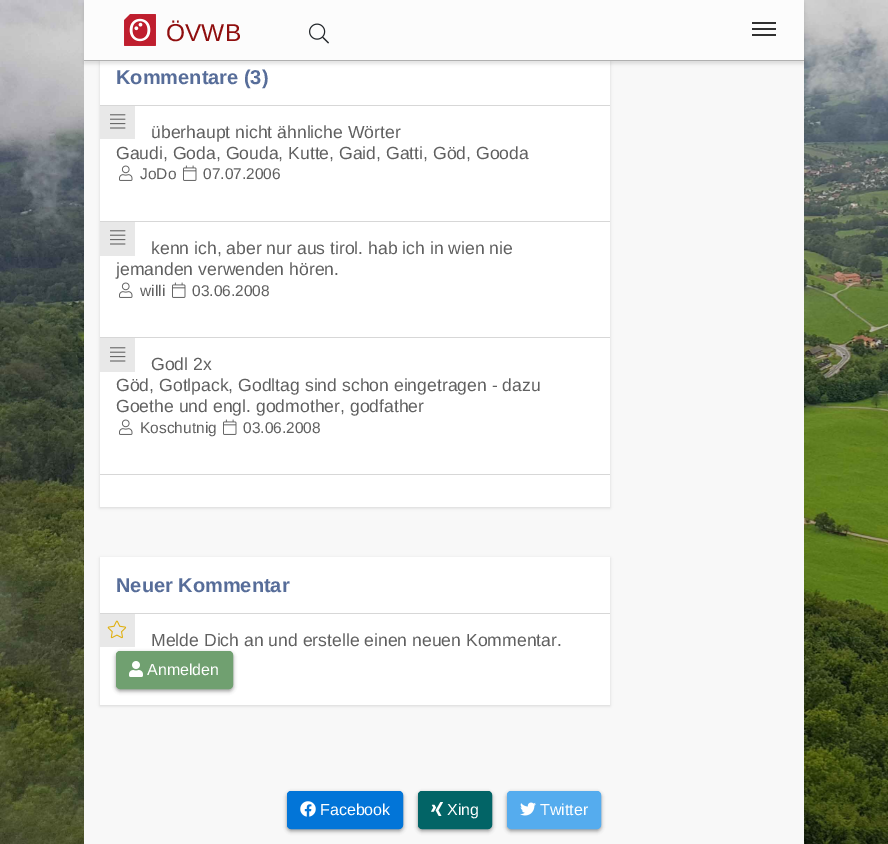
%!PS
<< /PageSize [888 844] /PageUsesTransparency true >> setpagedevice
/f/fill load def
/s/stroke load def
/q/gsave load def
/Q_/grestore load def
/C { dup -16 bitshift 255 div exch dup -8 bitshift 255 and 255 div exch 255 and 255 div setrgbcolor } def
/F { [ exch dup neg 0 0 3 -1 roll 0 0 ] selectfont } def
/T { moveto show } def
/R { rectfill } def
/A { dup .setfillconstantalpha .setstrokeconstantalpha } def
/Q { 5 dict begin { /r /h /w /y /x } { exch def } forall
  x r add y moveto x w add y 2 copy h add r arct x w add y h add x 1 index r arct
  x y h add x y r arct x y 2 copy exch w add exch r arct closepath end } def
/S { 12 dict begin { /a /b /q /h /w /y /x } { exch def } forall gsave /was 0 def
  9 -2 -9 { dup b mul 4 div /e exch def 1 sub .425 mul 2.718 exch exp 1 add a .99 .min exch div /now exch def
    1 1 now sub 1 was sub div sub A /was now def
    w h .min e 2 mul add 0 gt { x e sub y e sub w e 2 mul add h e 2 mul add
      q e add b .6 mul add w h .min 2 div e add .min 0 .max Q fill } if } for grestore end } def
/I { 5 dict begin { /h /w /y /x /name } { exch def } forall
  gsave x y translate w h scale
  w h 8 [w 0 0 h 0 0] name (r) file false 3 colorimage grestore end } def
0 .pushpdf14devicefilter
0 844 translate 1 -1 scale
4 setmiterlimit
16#FFFFFF C
0 0 888 844 R
(1.rgb) 0 0 888 844 I
16#F8F8F8 C
84 61 720 783 R
16#000000 C
100 50 510 458 0 1.5 .12 S
16#FFFFFF C
100 61 510 446 R
16#000000 C
84 3 720 61 0 1.5 .1 S
16#FCFCFC C
84 0 720 60 R
16#B0B0B0 C
84 60 720 1 R
(2.rgb) 124 14 32 32 I
/LiberationSans-Regular 24.5 F
16#8F0E0E C
(ÖVWB) 166 41 T
(3.rgb) 309 23 20 21 I
16#303030 C
752 28 24 2 R
752 22 24 2 R
752 34 24 2 R
/LiberationSans-Bold 20 F
16#576D99 C
(Kommentare \(3\)) 116 84 T
16#D7D7D7 C
100 105 510 1 R
16#E8E8E8 C
100 106 35 33 R
(4.rgb) 110 114 16 15 I
/LiberationSans-Regular 17.6 F
16#606060 C
(überhaupt nicht ähnliche Wörter) 151 138 T
(Gaudi, Goda, Gouda, Kutte, Gaid, Gatti, Göd, Gooda) 116 159 T
(5.rgb) 119 165 14 16 I
/LiberationSans-Regular 15.5 F
(JoDo) 140 179 T
(6.rgb) 183 165 14 16 I
(07.07.2006) 203 179 T
16#D7D7D7 C
100 221 510 1 R
16#E8E8E8 C
100 222 35 34 R
(4.rgb) 110 230 16 15 I
/LiberationSans-Regular 17.6 F
16#606060 C
(kenn ich, aber nur aus tirol. hab ich in wien nie) 151 254 T
(jemanden verwenden hören.) 116 275 T
(5.rgb) 119 282 14 16 I
/LiberationSans-Regular 15.5 F
(willi) 140 296 T
(6.rgb) 172 282 14 16 I
(03.06.2008) 192 296 T
16#D7D7D7 C
100 337 510 1 R
16#E8E8E8 C
100 338 35 34 R
(4.rgb) 110 347 16 15 I
/LiberationSans-Regular 17.6 F
16#606060 C
(Godl 2x) 151 370 T
(Göd, Gotlpack, Godltag sind schon eingetragen - dazu) 116 391 T
(Goethe und engl. godmother, godfather) 116 412 T
(5.rgb) 119 419 14 16 I
/LiberationSans-Regular 15.5 F
(Koschutnig) 140 433 T
(6.rgb) 223 419 14 16 I
(03.06.2008) 243 433 T
16#D7D7D7 C
100 474 510 1 R
16#000000 C
100 558 510 148 0 1.5 .12 S
16#FFFFFF C
100 557 510 148 R
/LiberationSans-Bold 20 F
16#576D99 C
(Neuer Kommentar) 116 592 T
16#D7D7D7 C
100 613 510 1 R
16#000000 C
116 653 117 38 4 2 .14 S
116 653 117 38 4 2 .28 S
16#E8E8E8 C
100 614 35 33 R
(7.rgb) 107 620 20 19 I
/LiberationSans-Regular 17.6 F
16#606060 C
(Melde Dich an und erstelle einen neuen Kommentar.) 151 646 T
16#70A070 C
116.5 651.5 116 37 3.5 Q q f Q_
s
(8.rgb) 129 661 14 16 I
/LiberationSans-Regular 16 F
16#FFFFFF C
(Anmelden) 147 675 T
16#000000 C
287 793 116 38 4 2 .14 S
287 793 116 38 4 2 .28 S
16#0275D8 C
287.5 791.5 115 37 3.5 Q q f Q_
s
(9.rgb) 300 801 16 16 I
16#FFFFFF C
(Facebook) 320 815 T
16#000000 C
418 793 74 38 4 2 .14 S
418 793 74 38 4 2 .28 S
16#026466 C
418.5 791.5 73 37 3.5 Q q f Q_
s
(10.rgb) 431 802 12 14 I
16#FFFFFF C
(Xing) 447 815 T
16#000000 C
507 793 94 38 4 2 .14 S
507 793 94 38 4 2 .28 S
16#55ACEE C
507.5 791.5 93 37 3.5 Q q f Q_
s
(11.rgb) 520 802 16 14 I
16#FFFFFF C
(Twitter) 540 815 T
.poppdf14devicefilter showpage
